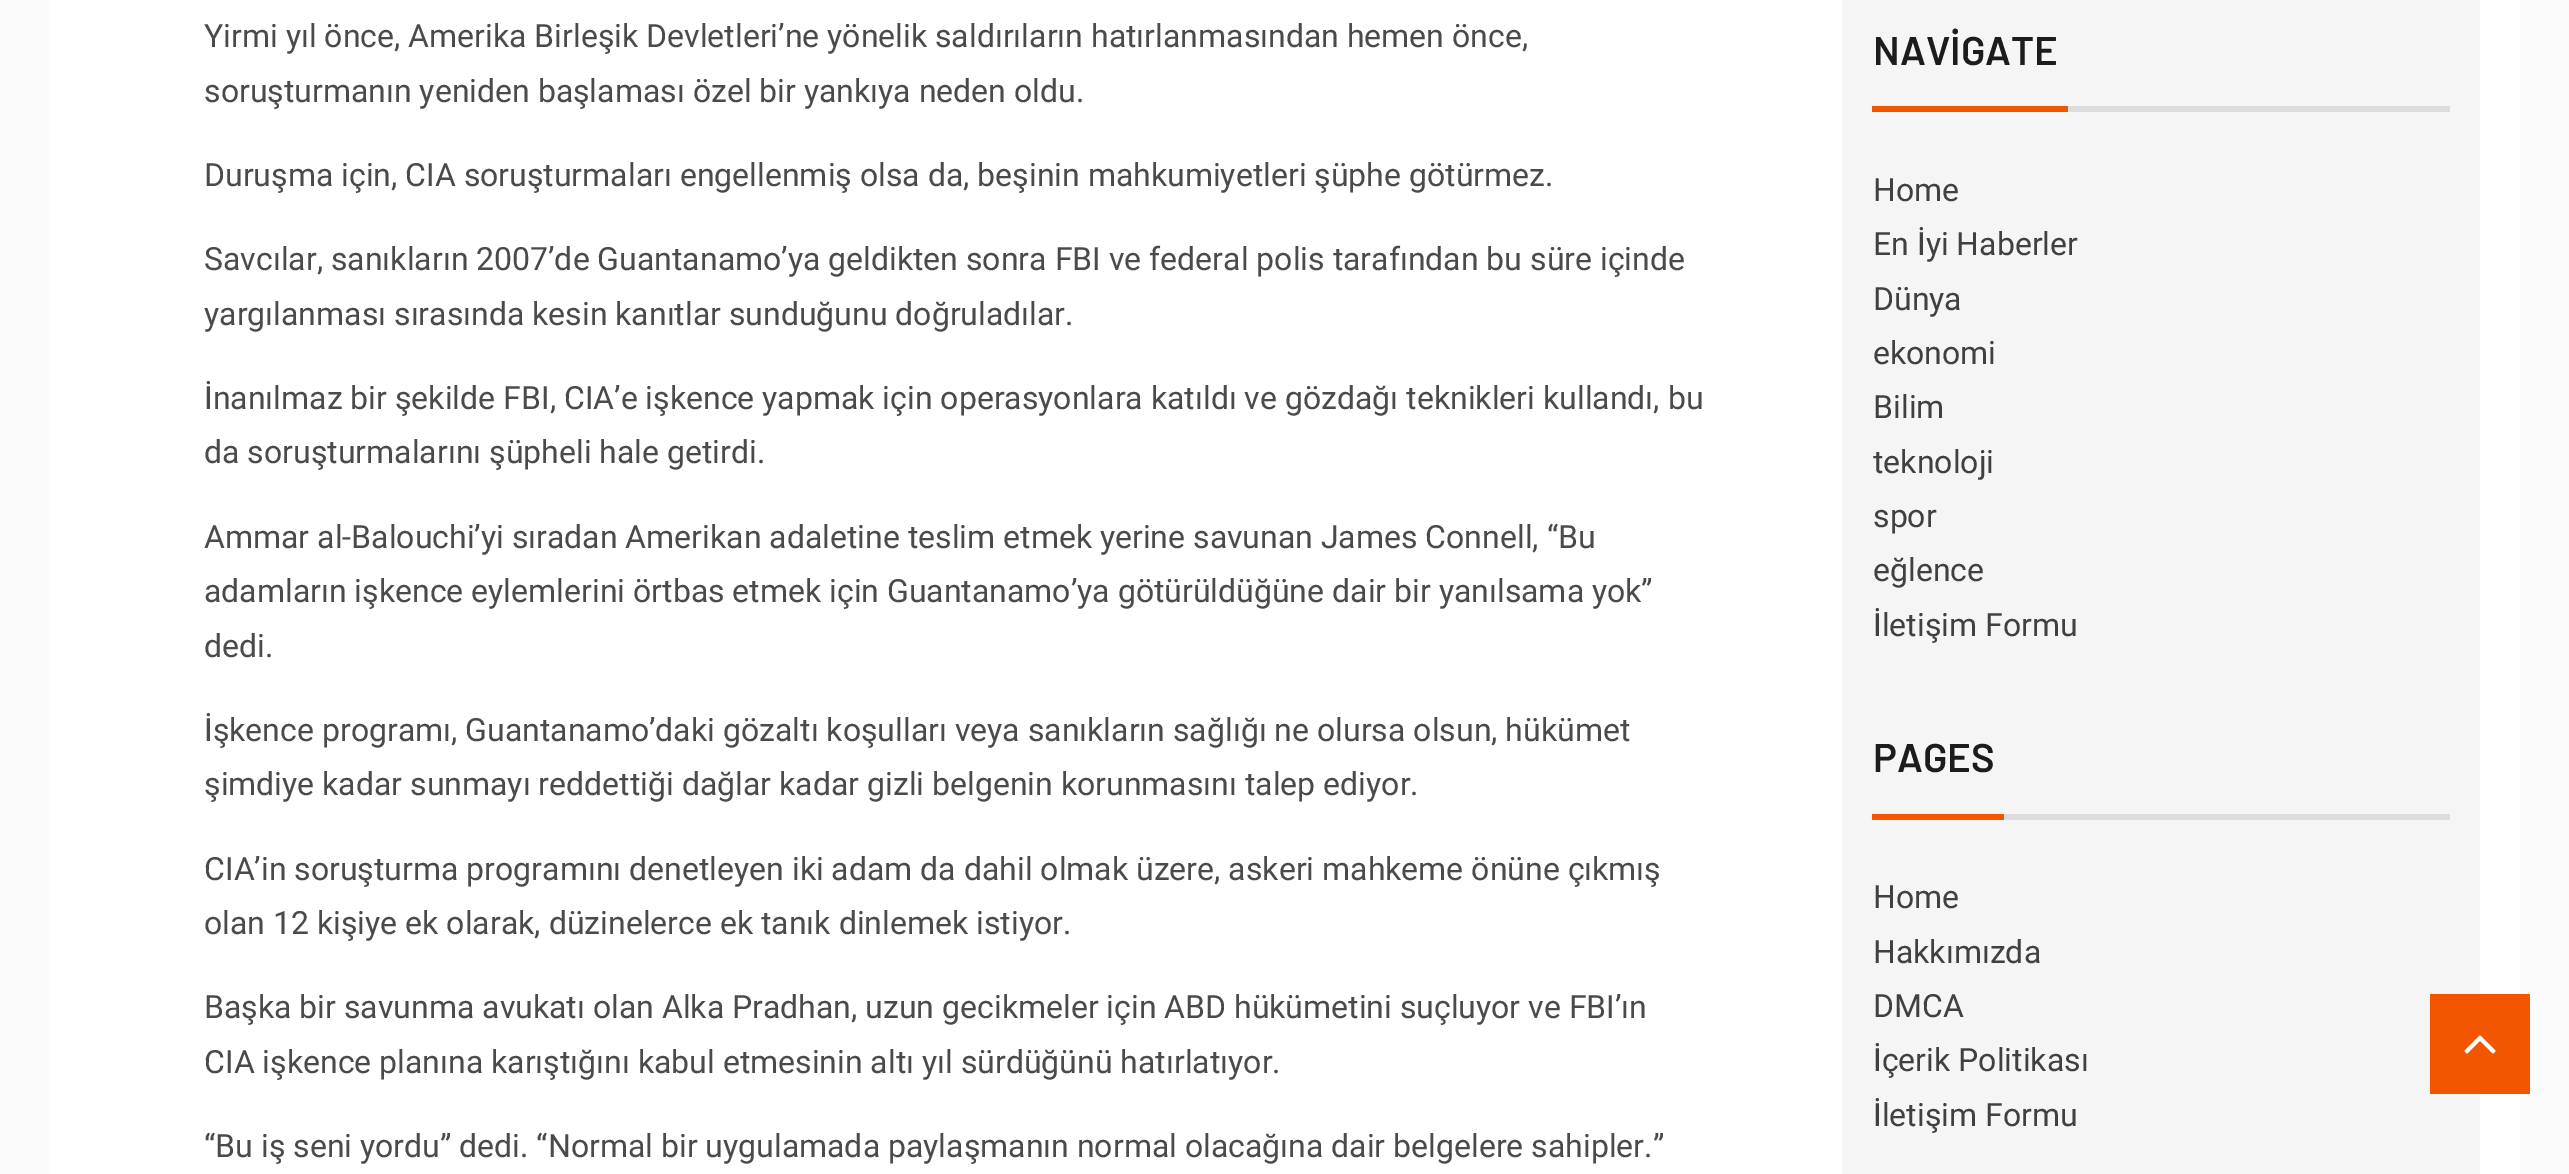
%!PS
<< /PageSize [2569 1174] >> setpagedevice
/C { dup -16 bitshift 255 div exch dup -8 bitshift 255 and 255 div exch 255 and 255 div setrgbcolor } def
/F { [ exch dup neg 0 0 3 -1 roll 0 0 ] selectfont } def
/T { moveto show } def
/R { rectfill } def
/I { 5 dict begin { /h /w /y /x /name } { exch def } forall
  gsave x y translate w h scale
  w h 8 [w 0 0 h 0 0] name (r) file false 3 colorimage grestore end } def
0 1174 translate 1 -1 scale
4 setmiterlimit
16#FBFBFB C
0 0 2569 1174 R
16#FFFFFF C
50 0 2470 1174 R
/Roboto-Regular 32 F
16#4A4A4A C
(Yirmi yıl önce, Amerika Birleşik Devletleri’ne yönelik saldırıların hatırlanmasından hemen önce,) 204 47 T
(soruşturmanın yeniden başlaması özel bir yankıya neden oldu.) 204 102 T
(Duruşma için, CIA soruşturmaları engellenmiş olsa da, beşinin mahkumiyetleri şüphe götürmez.) 204 186 T
(Savcılar, sanıkların 2007’de Guantanamo’ya geldikten sonra FBI ve federal polis tarafından bu süre içinde) 204 270 T
(yargılanması sırasında kesin kanıtlar sunduğunu doğruladılar.) 204 325 T
(İnanılmaz bir şekilde FBI, CIA’e işkence yapmak için operasyonlara katıldı ve gözdağı teknikleri kullandı, bu) 204 409 T
(da soruşturmalarını şüpheli hale getirdi.) 204 463 T
(Ammar al-Balouchi’yi sıradan Amerikan adaletine teslim etmek yerine savunan James Connell, “Bu) 204 548 T
(adamların işkence eylemlerini örtbas etmek için Guantanamo’ya götürüldüğüne dair bir yanılsama yok”) 204 602 T
(dedi.) 204 657 T
(İşkence programı, Guantanamo’daki gözaltı koşulları veya sanıkların sağlığı ne olursa olsun, hükümet) 204 741 T
(şimdiye kadar sunmayı reddettiği dağlar kadar gizli belgenin korunmasını talep ediyor.) 204 795 T
(CIA’in soruşturma programını denetleyen iki adam da dahil olmak üzere, askeri mahkeme önüne çıkmış) 204 880 T
(olan 12 kişiye ek olarak, düzinelerce ek tanık dinlemek istiyor.) 204 934 T
(Başka bir savunma avukatı olan Alka Pradhan, uzun gecikmeler için ABD hükümetini suçluyor ve FBI’ın) 204 1018 T
(CIA işkence planına karıştığını kabul etmesinin altı yıl sürdüğünü hatırlatıyor.) 204 1073 T
(“Bu iş seni yordu” dedi. “Normal bir uygulamada paylaşmanın normal olacağına dair belgelere sahipler.”) 204 1157 T
16#F5F5F5 C
1842 0 638 1174 R
/Barlow-SemiBold 40 F
16#1C1C1C C
(NAVİGATE) 1873 65 T
16#F25600 C
1872 106 196 6 R
16#DDDDDD C
2068 106 382 6 R
/Roboto-Regular 32 F
16#404040 C
(Home) 1873 201 T
(En İyi Haberler) 1873 255 T
(Dünya) 1873 310 T
(ekonomi) 1873 364 T
(Bilim) 1873 418 T
(teknoloji) 1873 473 T
(spor) 1873 527 T
(eğlence) 1873 581 T
(İletişim Formu) 1873 636 T
/Barlow-SemiBold 40 F
16#1C1C1C C
(PAGES) 1873 772 T
16#F25600 C
1872 814 132 6 R
16#DDDDDD C
2004 814 446 6 R
/Roboto-Regular 32 F
16#404040 C
(Home) 1873 908 T
(Hakkımızda) 1873 963 T
(DMCA) 1873 1017 T
(İçerik Politikası) 1873 1071 T
(İletişim Formu) 1873 1126 T
16#F25600 C
2430 994 100 100 R
(1.rgb) 2464 1035 32 19 I
showpage
